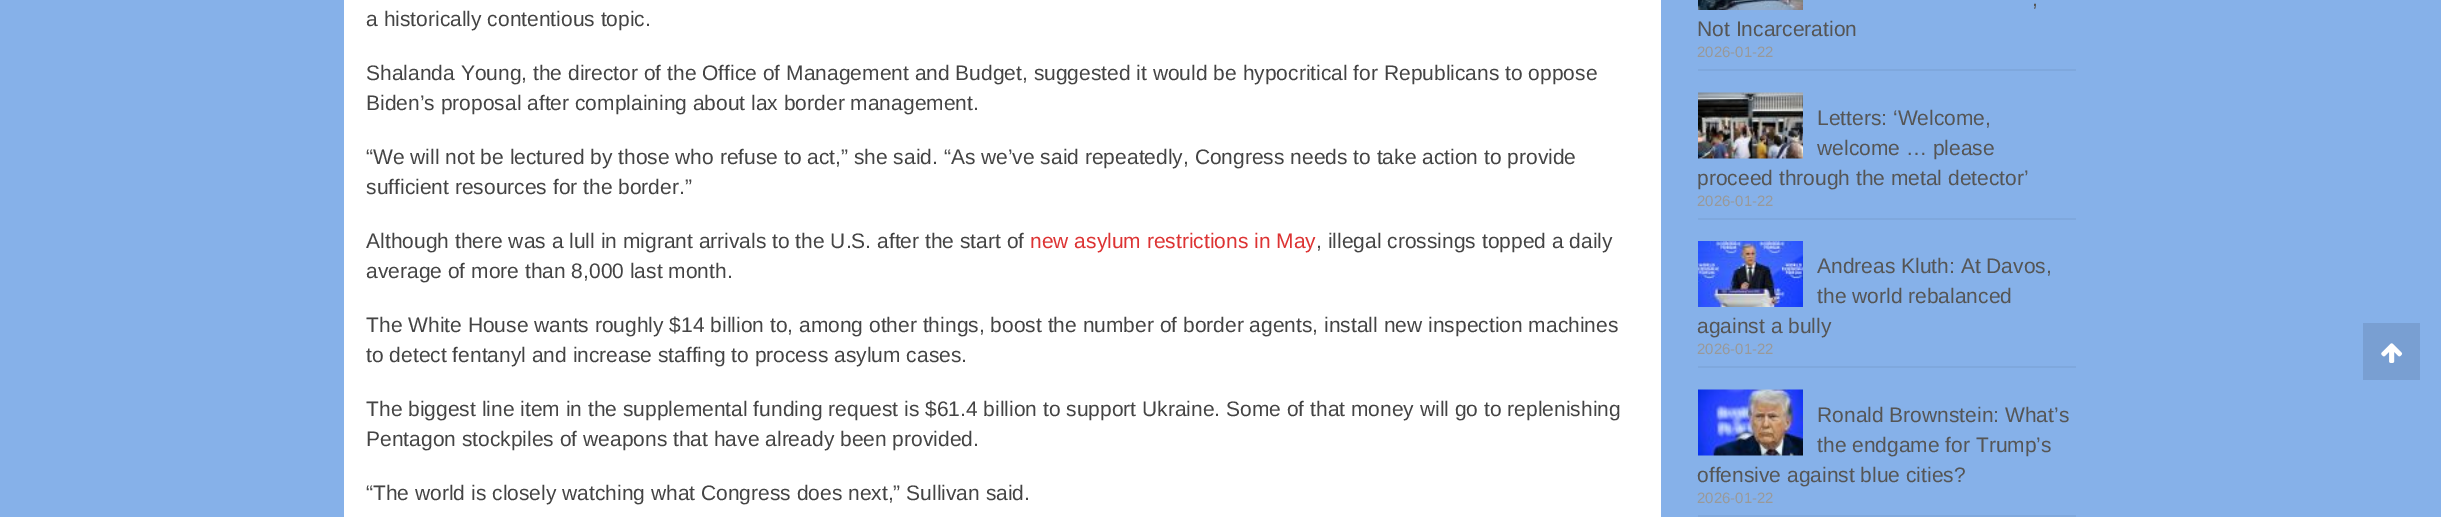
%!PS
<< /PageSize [2441 517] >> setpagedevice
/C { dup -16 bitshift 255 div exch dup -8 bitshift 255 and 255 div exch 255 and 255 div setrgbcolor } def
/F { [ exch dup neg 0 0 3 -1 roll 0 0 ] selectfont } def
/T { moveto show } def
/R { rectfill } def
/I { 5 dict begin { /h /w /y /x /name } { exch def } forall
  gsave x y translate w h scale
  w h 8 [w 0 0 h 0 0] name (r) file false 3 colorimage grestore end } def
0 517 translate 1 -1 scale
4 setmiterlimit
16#86B1E9 C
0 0 2441 517 R
16#FFFFFF C
344 0 1317 517 R
/LiberationSans-Regular 21 F
16#444444 C
(a historically contentious topic.) 366 26 T
(Shalanda Young, the director of the Office of Management and Budget, suggested it would be hypocritical for Republicans to oppose) 366 80 T
(Biden’s proposal after complaining about lax border management.) 366 110 T
(“We will not be lectured by those who refuse to act,” she said. “As we’ve said repeatedly, Congress needs to take action to provide) 366 164 T
(sufficient resources for the border.”) 366 194 T
(Although there was a lull in migrant arrivals to the U.S. after the start of) 366 248 T
16#DD3333 C
(new asylum restrictions in May) 1030 248 T
16#444444 C
(, illegal crossings topped a daily) 1316 248 T
(average of more than 8,000 last month.) 366 278 T
(The White House wants roughly $14 billion to, among other things, boost the number of border agents, install new inspection machines) 366 332 T
(to detect fentanyl and increase staffing to process asylum cases.) 366 362 T
(The biggest line item in the supplemental funding request is $61.4 billion to support Ukraine. Some of that money will go to replenishing) 366 416 T
(Pentagon stockpiles of weapons that have already been provided.) 366 446 T
(“The world is closely watching what Congress does next,” Sullivan said.) 366 500 T
16#7FA8DD C
1698 69 378 2 R
(1.rgb) 1698 0 105 10 I
16#555555 C
(,) 2032 6 T
(Not Incarceration) 1697 36 T
/LiberationSans-Regular 15 F
16#999999 C
(2026-01-22) 1697 57 T
16#7FA8DD C
1698 218 378 2 R
(2.rgb) 1698 92 105 67 I
/LiberationSans-Regular 21 F
16#555555 C
(Letters: ‘Welcome,) 1817 125 T
(welcome … please) 1817 155 T
(proceed through the metal detector’) 1697 185 T
/LiberationSans-Regular 15 F
16#999999 C
(2026-01-22) 1697 206 T
16#7FA8DD C
1698 366 378 2 R
(3.rgb) 1698 241 105 66 I
/LiberationSans-Regular 21 F
16#555555 C
(Andreas Kluth: At Davos,) 1817 273 T
(the world rebalanced) 1817 303 T
(against a bully) 1697 333 T
/LiberationSans-Regular 15 F
16#999999 C
(2026-01-22) 1697 354 T
16#7FA8DD C
1698 515 378 2 R
(4.rgb) 1698 389 105 67 I
/LiberationSans-Regular 21 F
16#555555 C
(Ronald Brownstein: What’s) 1817 422 T
(the endgame for Trump’s) 1817 452 T
(offensive against blue cities?) 1697 482 T
/LiberationSans-Regular 15 F
16#999999 C
(2026-01-22) 1697 503 T
16#799FD2 C
2363 323 57 57 R
(5.rgb) 2381 343 22 20 I
showpage
